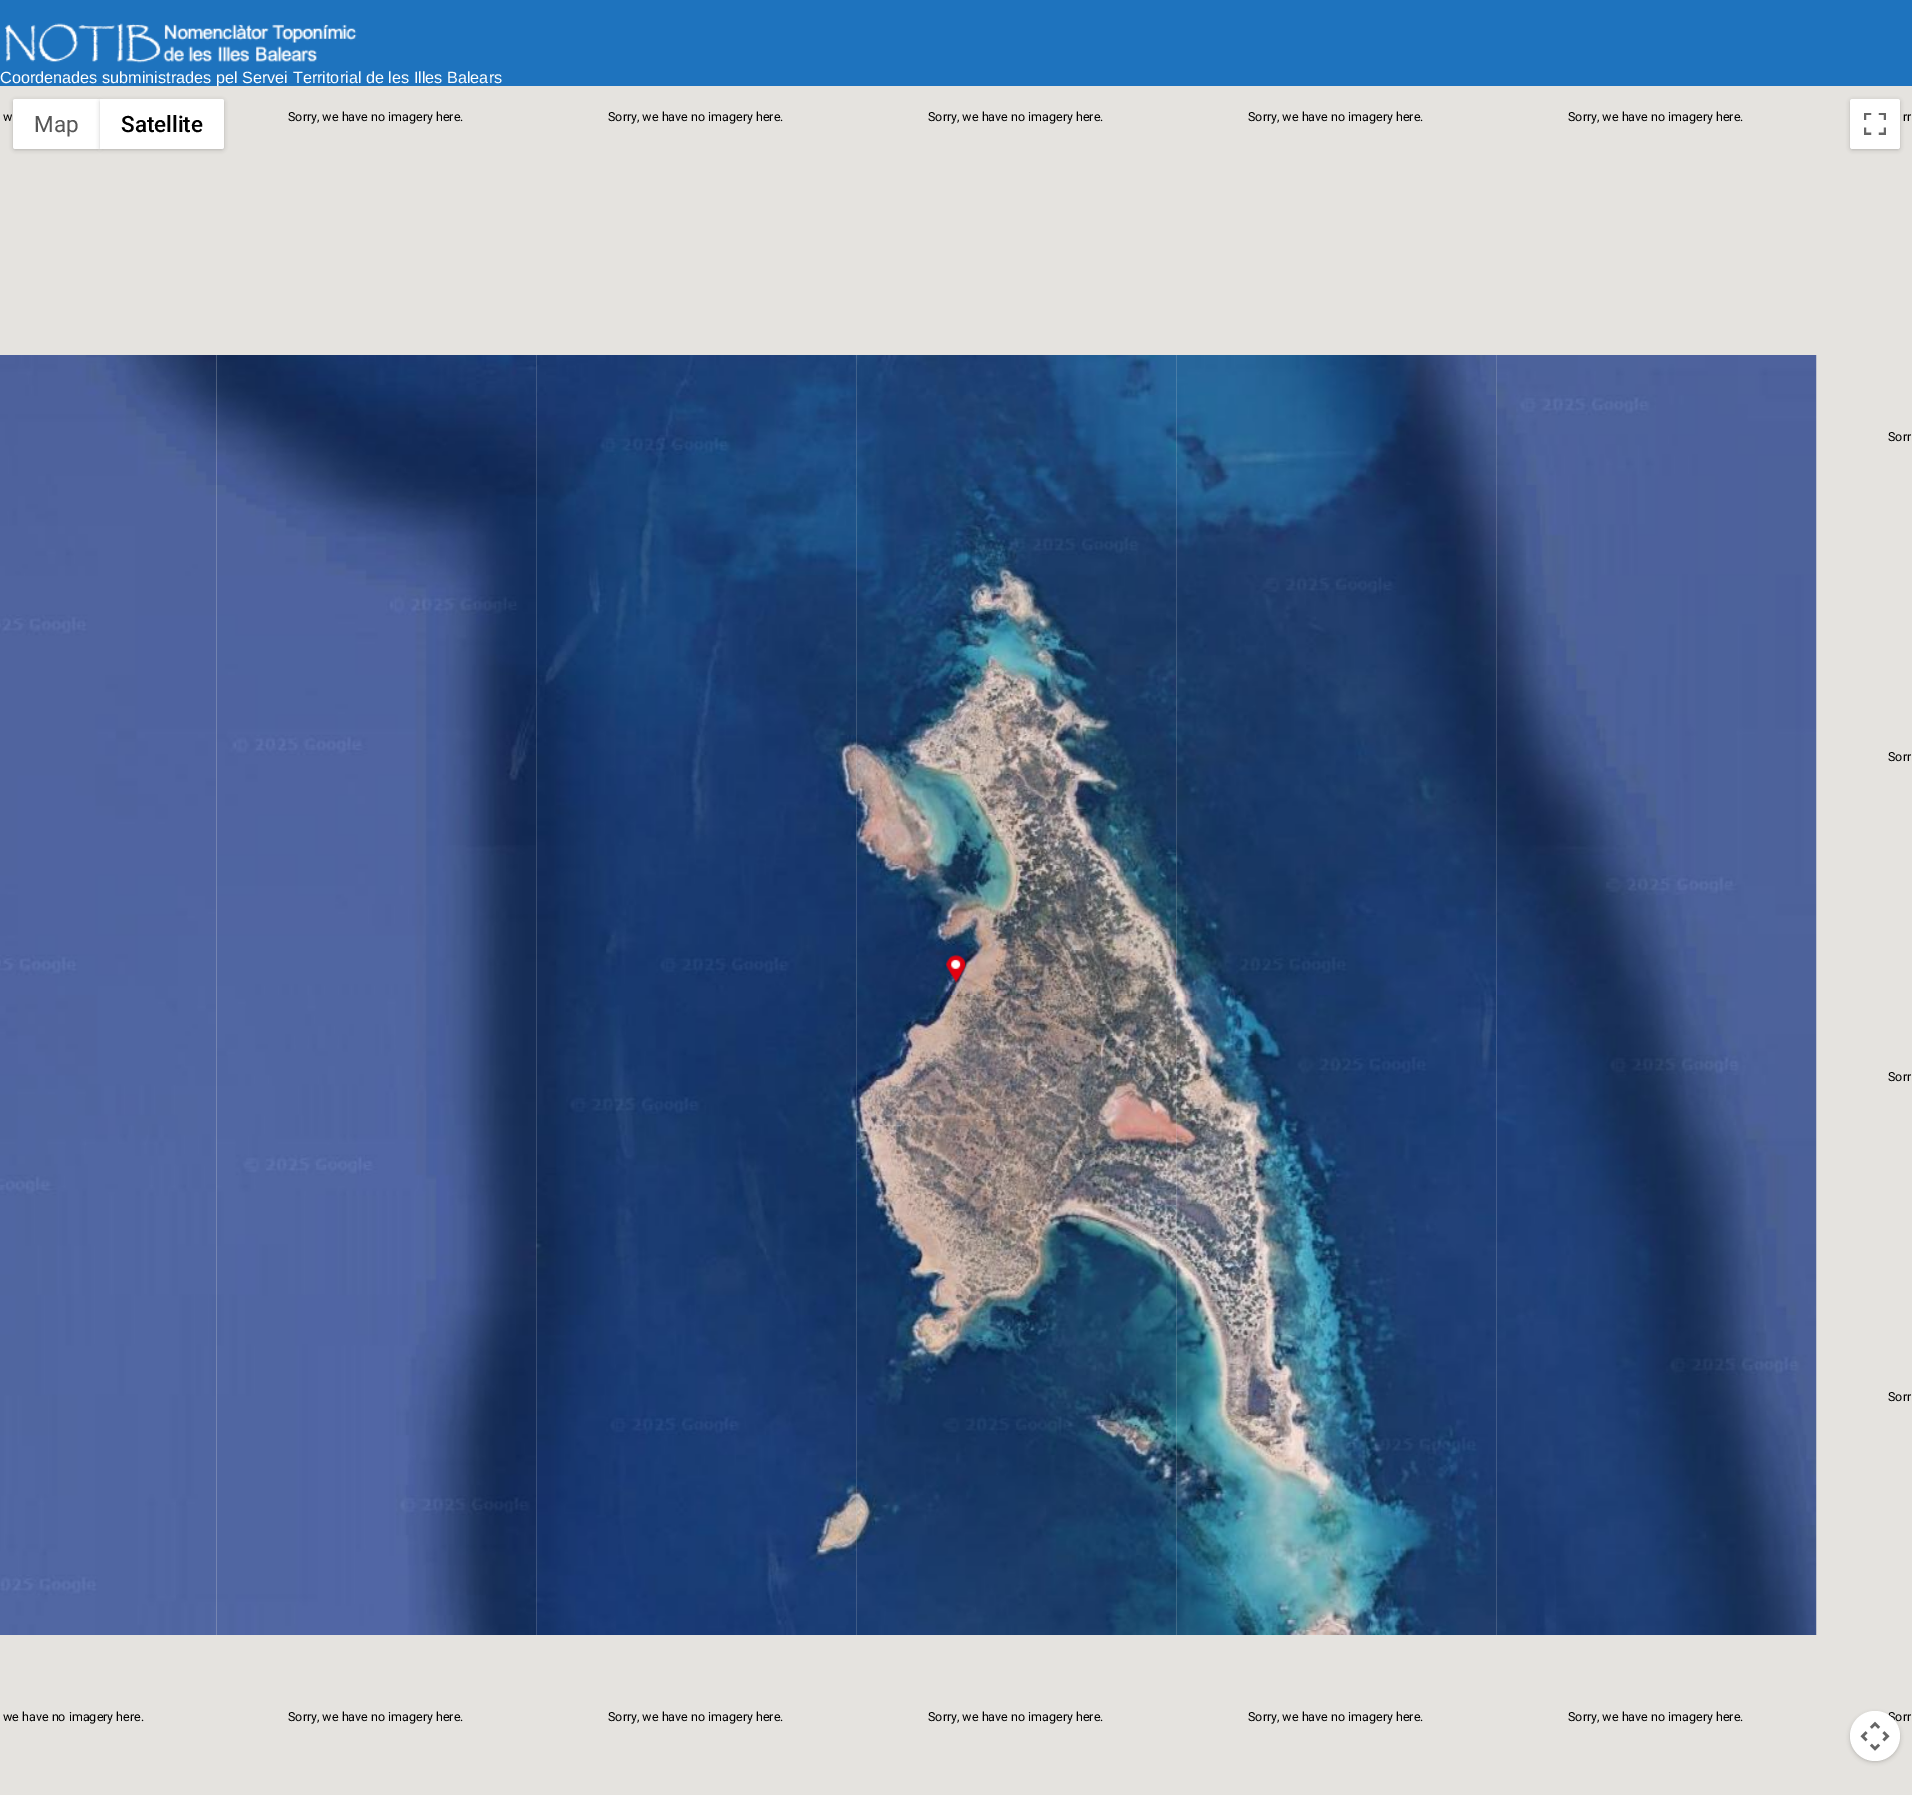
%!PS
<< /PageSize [1912 1795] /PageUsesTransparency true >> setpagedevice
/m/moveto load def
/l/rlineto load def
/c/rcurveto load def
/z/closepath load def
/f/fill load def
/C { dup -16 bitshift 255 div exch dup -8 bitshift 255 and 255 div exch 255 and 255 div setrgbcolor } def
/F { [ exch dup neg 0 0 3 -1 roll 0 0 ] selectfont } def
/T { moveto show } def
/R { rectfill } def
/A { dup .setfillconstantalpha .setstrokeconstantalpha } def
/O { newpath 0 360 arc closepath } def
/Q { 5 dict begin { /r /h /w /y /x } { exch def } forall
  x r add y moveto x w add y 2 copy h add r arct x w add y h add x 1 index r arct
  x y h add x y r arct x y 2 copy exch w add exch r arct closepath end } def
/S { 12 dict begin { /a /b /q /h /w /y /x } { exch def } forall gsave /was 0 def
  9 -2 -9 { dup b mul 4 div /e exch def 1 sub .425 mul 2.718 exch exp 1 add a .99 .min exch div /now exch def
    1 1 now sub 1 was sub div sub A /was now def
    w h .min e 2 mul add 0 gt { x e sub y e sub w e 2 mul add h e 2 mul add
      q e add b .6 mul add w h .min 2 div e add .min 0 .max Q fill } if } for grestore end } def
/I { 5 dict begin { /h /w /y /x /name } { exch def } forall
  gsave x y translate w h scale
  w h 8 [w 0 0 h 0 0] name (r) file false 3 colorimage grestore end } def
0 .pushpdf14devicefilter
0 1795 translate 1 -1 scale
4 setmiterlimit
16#1E73BE C
0 0 1912 1795 R
(1.rgb) 5 23 352 40 I
/LiberationSans-Regular 16.25 F
16#FFFFFF C
(Coordenades subministrades pel Servei Territorial de les Illes Balears) 0 83 T
16#E5E3DF C
0 86 1912 1709 R
16#000000 C
1851 101 48 48 1 2.5 .3 S
16#FFFFFF C
1850 99 50 50 2.5 Q f
(2.rgb) 1864 113 22 22 I
/Roboto-Regular 12.5 F
16#000000 C
(w) 3 121 T
(Sorry, we have no imagery here.) 288 121 T
(Sorry, we have no imagery here.) 608 121 T
(Sorry, we have no imagery here.) 928 121 T
(Sorry, we have no imagery here.) 1248 121 T
(Sorry, we have no imagery here.) 1568 121 T
(rr) 1903 121 T
(3.rgb) 0 355 216 320 I
(5.rgb) 536 355 321 320 I
(4.rgb) 216 355 321 320 I
(6.rgb) 856 355 321 320 I
(7.rgb) 1176 355 321 320 I
(8.rgb) 1496 355 321 320 I
(Sorr) 1888 441 T
(9.rgb) 0 675 216 320 I
(12.rgb) 856 675 321 320 I
(11.rgb) 536 675 321 320 I
(10.rgb) 216 675 321 320 I
(13.rgb) 1176 675 321 320 I
(14.rgb) 1496 675 321 320 I
(Sorr) 1888 761 T
(15.rgb) 0 995 216 320 I
(19.rgb) 1176 995 321 320 I
(18.rgb) 856 995 321 320 I
(17.rgb) 536 995 321 320 I
(16.rgb) 216 995 321 320 I
(20.rgb) 1496 995 321 320 I
(Sorr) 1888 1081 T
(21.rgb) 0 1315 216 320 I
(26.rgb) 1496 1315 321 320 I
(25.rgb) 1176 1315 321 320 I
(24.rgb) 856 1315 321 320 I
(23.rgb) 536 1315 321 320 I
(22.rgb) 216 1315 321 320 I
(Sorr) 1888 1401 T
(we have no imagery here.) 3 1721 T
(Sorry, we have no imagery here.) 288 1721 T
(Sorry, we have no imagery here.) 608 1721 T
(Sorry, we have no imagery here.) 928 1721 T
(Sorry, we have no imagery here.) 1248 1721 T
(Sorry, we have no imagery here.) 1568 1721 T
(Sorr) 1888 1721 T
(27.rgb) 946 954 21 29 I
14 101 85 48 1 2.5 .3 S
16#FFFFFF C
15.5 99 m 84.5 0 l 0 50 l -84.5 0 l -1.5 0 -2.5 -1 -2.5 -2.5 c 0 -45 l 0 -1.5 1 -2.5 2.5 -2.5 c z f
/Roboto-Regular 22.5 F
16#565656 C
(Map) 34 132 T
16#000000 C
101 101 122 48 1 2.5 .3 S
16#FFFFFF C
100 99 m 121.5 0 l 1.5 0 2.5 1 2.5 2.5 c 0 45 l 0 1.5 -1 2.5 -2.5 2.5 c -121.5 0 l z f
/Roboto-Medium 22.5 F
16#000000 C
(Satellite) 121 132 T
1851 1714 48 47 23.5 2.5 .3 S
16#FFFFFF C
1875 1736 25 O f
(28.rgb) 1860 1721 30 30 I
.poppdf14devicefilter showpage
